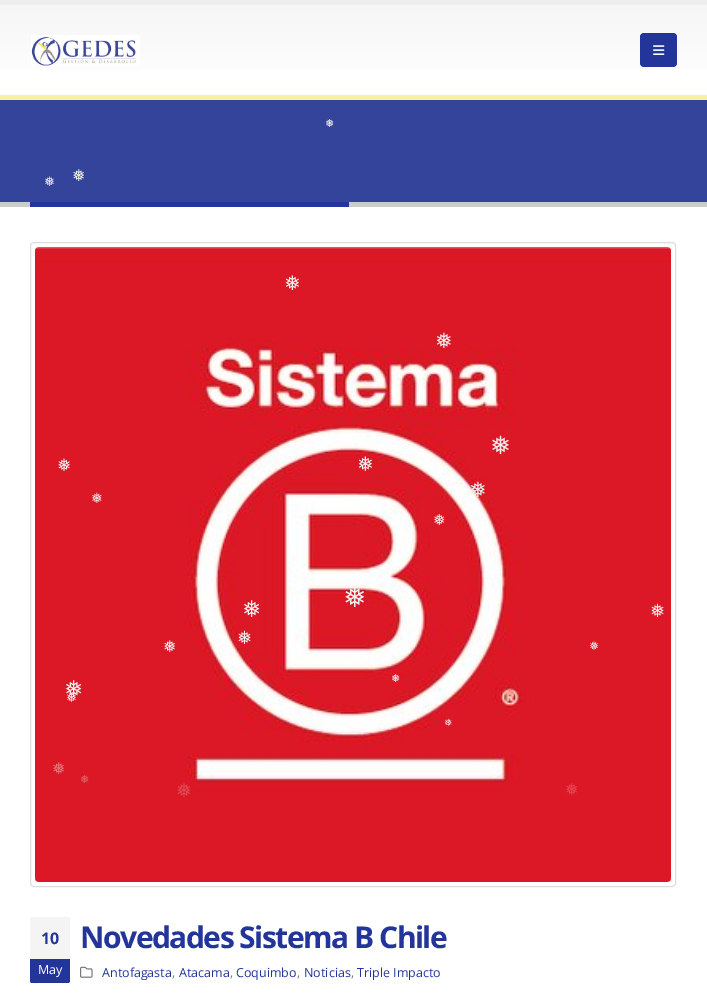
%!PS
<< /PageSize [707 1007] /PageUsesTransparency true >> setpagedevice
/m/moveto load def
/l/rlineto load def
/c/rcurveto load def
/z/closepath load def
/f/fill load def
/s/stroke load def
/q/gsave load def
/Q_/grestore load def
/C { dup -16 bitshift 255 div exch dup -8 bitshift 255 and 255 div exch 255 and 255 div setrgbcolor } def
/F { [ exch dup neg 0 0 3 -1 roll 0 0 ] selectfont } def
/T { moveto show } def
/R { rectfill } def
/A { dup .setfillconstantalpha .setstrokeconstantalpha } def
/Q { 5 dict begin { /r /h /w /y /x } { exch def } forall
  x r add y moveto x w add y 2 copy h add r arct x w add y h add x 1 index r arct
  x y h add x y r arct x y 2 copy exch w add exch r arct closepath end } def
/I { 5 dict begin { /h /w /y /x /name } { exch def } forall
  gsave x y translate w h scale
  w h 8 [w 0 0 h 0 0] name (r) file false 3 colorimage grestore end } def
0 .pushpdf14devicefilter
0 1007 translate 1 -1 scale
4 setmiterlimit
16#FFFFFF C
0 0 707 1007 R
16#34449B C
0 100 707 102 R
/DejaVuSans-Regular 11 F
16#EFEFEF C
(❅) 325 127 T
/DejaVuSans-Regular 13 F
(❅) 44 186 T
/DejaVuSans-Regular 16 F
(❅) 72 181 T
16#DDDDDD C
30.5 242.5 645 644 3.5 Q s
(3.rgb) 35 247 636 635 I
/DejaVuSans-Regular 20 F
16#EFEFEF C
(❅) 284 290 T
/DejaVuSans-Regular 21 F
(❅) 435 348 T
/DejaVuSans-Regular 25 F
(❅) 490 454 T
/DejaVuSans-Regular 17 F
(❅) 57 471 T
/DejaVuSans-Regular 20 F
(❅) 357 471 T
/DejaVuSans-Regular 14 F
(❅) 91 503 T
/DejaVuSans-Regular 21 F
(❅) 469 497 T
/DejaVuSans-Regular 15 F
(❅) 433 525 T
/DejaVuSans-Regular 23 F
(❅) 242 617 T
/DejaVuSans-Regular 28 F
(❅) 343 607 T
/DejaVuSans-Regular 18 F
(❅) 650 617 T
(❅) 237 644 T
/DejaVuSans-Regular 16 F
(❅) 163 652 T
/DejaVuSans-Regular 12 F
(❅) 589 650 T
/DejaVuSans-Regular 11 F
(❅) 391 682 T
/DejaVuSans-Regular 23 F
(❅) 64 697 T
/DejaVuSans-Regular 13 F
(❅) 66 702 T
/DejaVuSans-Regular 10 F
16#EDDADB C
(❅) 444 726 T
/DejaVuSans-Regular 16 F
16#E4777E C
(❅) 52 774 T
/DejaVuSans-Regular 11 F
16#E25F68 C
(❅) 80 783 T
/DejaVuSans-Regular 19 F
16#E04954 C
(❅) 176 797 T
/DejaVuSans-Regular 16 F
(❅) 565 795 T
16#EDEDED C
0 0 707 5 R
q 0 5 m 707 0 l 0 65 l -707 0 l z clip newpath
<< /ShadingType 2 /ColorSpace /DeviceRGB /Coords [354 5 354 95] /Extend [true true] /Function << /FunctionType 2 /Domain [0 1] /C0 [.965 .965 .965] /C1 [1 1 1] /N 1 >> >> shfill Q_
(1.rgb) 31 35 109 31 I
16#23359B C
640 33 37 34 4 Q f
(2.rgb) 653 45 12 10 I
16#F7F0A5 C
0 95 707 5 R
16#CCCCCC C
0 202 707 5 R
16#23359B C
30 202 319 5 R
16#F4F4F4 C
32 917 m 36 0 l 1 0 2 1 2 2 c 0 40 l -40 0 l 0 -40 l 0 -1 1 -2 2 -2 c z f
/OpenSans-Bold 16 F
16#23359B C
(10) 41 944 T
30 959 m 40 0 l 0 22 l 0 1 -1 2 -2 2 c -36 0 l -1 0 -2 -1 -2 -2 c z f
0.07 A
16#000000 C
30 980 m 0 4 4 3 8 3 c 24 0 l 4 0 8 1 8 -3 c 0 1 -1 2 -2 2 c -36 0 l -1 0 -2 -1 -2 -2 c z f
/OpenSans-Regular 12.5 F
1 A
16#FFFFFF C
(May) 38 974 T
/OpenSans-Bold 30 F
16#23359B C
80 948 m -1.5 0 (Novedades Sistema B Chile) ashow
(4.rgb) 80 966 13 12 I
/OpenSans-Regular 12.5 F
(Antofagasta) 102 977 T
16#777777 C
(,) 172 977 T
16#23359B C
(Atacama) 179 977 T
16#777777 C
(,) 230 977 T
16#23359B C
(Coquimbo) 236 977 T
16#777777 C
(,) 297 977 T
16#23359B C
(Noticias) 304 977 T
16#777777 C
(,) 351 977 T
16#23359B C
(Triple Impacto) 357 977 T
.poppdf14devicefilter showpage
